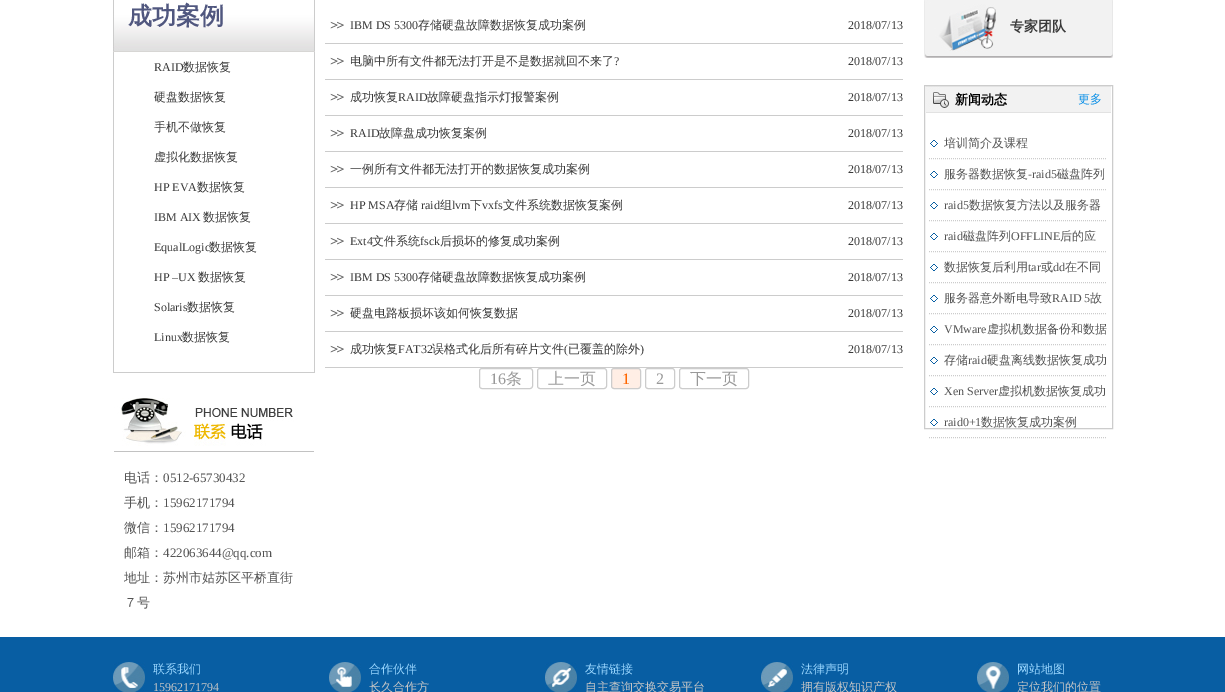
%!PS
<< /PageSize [1225 692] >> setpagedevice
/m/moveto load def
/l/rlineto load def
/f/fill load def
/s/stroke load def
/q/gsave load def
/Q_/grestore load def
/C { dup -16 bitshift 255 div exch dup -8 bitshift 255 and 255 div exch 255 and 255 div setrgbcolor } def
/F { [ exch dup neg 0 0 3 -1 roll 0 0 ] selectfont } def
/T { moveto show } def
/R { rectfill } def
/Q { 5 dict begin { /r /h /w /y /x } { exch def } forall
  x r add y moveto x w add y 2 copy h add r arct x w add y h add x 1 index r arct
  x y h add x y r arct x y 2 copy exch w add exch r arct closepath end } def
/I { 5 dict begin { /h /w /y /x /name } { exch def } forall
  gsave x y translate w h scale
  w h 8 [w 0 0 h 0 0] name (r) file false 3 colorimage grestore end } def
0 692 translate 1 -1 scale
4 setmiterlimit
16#FFFFFF C
0 0 1225 692 R
(1.rgb) 113 0 202 52 I
/WenQuanYiZenHei-Bold 24 F
16#50577F C
(成功案例) 128 24 T
16#CCCCCC C
314 52 1 321 R
113 372 202 1 R
113 52 1 321 R
/LiberationSerif-Regular 12 F
16#3A3A3A C
(RAID) 154 71 T
/WenQuanYiZenHei-Medium 12 F
(数据恢复) 183 71 T
(硬盘数据恢复) 154 101 T
(手机不做恢复) 154 131 T
(虚拟化数据恢复) 154 161 T
/LiberationSerif-Regular 12 F
(HP EVA) 154 191 T
/WenQuanYiZenHei-Medium 12 F
(数据恢复) 197 191 T
/LiberationSerif-Regular 12 F
(IBM AIX) 154 221 T
/WenQuanYiZenHei-Medium 12 F
(数据恢复) 203 221 T
/LiberationSerif-Regular 12 F
(EqualLogic) 154 251 T
/WenQuanYiZenHei-Medium 12 F
(数据恢复) 209 251 T
/LiberationSerif-Regular 12 F
(HP –UX) 154 281 T
/WenQuanYiZenHei-Medium 12 F
(数据恢复) 198 281 T
/LiberationSerif-Regular 12 F
(Solaris) 154 311 T
/WenQuanYiZenHei-Medium 12 F
(数据恢复) 187 311 T
/LiberationSerif-Regular 12 F
(Linux) 154 341 T
/WenQuanYiZenHei-Medium 12 F
(数据恢复) 182 341 T
(2.rgb) 114 398 200 54 I
/WenQuanYiZenHei-Medium 13 F
16#545454 C
(电话：) 124 482 T
/LiberationSerif-Regular 13 F
(0512-65730432) 163 482 T
/WenQuanYiZenHei-Medium 13 F
(手机：) 124 507 T
/LiberationSerif-Regular 13 F
(15962171794) 163 507 T
/WenQuanYiZenHei-Medium 13 F
(微信：) 124 532 T
/LiberationSerif-Regular 13 F
(15962171794) 163 532 T
/WenQuanYiZenHei-Medium 13 F
(邮箱：) 124 557 T
/LiberationSerif-Regular 13 F
(422063644@qq.com) 163 557 T
/WenQuanYiZenHei-Medium 13 F
(地址：苏州市姑苏区平桥直街) 124 582 T
(７号) 124 607 T
16#CCCCCC C
325 43 578 1 R
(3.rgb) 330 21 14 8 I
/LiberationSerif-Regular 12 F
16#3A3A3A C
(IBM DS 5300) 350 29 T
/WenQuanYiZenHei-Medium 12 F
(存储硬盘故障数据恢复成功案例) 418 29 T
/LiberationSerif-Regular 12 F
(2018/07/13) 848 29 T
16#CCCCCC C
325 79 578 1 R
(3.rgb) 330 57 14 8 I
/WenQuanYiZenHei-Medium 12 F
16#3A3A3A C
(电脑中所有文件都无法打开是不是数据就回不来了) 350 65 T
/LiberationSerif-Regular 12 F
(?) 614 65 T
(2018/07/13) 848 65 T
16#CCCCCC C
325 115 578 1 R
(3.rgb) 330 93 14 8 I
/WenQuanYiZenHei-Medium 12 F
16#3A3A3A C
(成功恢复) 350 101 T
/LiberationSerif-Regular 12 F
(RAID) 398 101 T
/WenQuanYiZenHei-Medium 12 F
(故障硬盘指示灯报警案例) 427 101 T
/LiberationSerif-Regular 12 F
(2018/07/13) 848 101 T
16#CCCCCC C
325 151 578 1 R
(3.rgb) 330 129 14 8 I
16#3A3A3A C
(RAID) 350 137 T
/WenQuanYiZenHei-Medium 12 F
(故障盘成功恢复案例) 379 137 T
/LiberationSerif-Regular 12 F
(2018/07/13) 848 137 T
16#CCCCCC C
325 187 578 1 R
(3.rgb) 330 165 14 8 I
/WenQuanYiZenHei-Medium 12 F
16#3A3A3A C
(一例所有文件都无法打开的数据恢复成功案例) 350 173 T
/LiberationSerif-Regular 12 F
(2018/07/13) 848 173 T
16#CCCCCC C
325 223 578 1 R
(3.rgb) 330 201 14 8 I
16#3A3A3A C
(HP MSA) 350 209 T
/WenQuanYiZenHei-Medium 12 F
(存储) 394 209 T
/LiberationSerif-Regular 12 F
(raid) 421 209 T
/WenQuanYiZenHei-Medium 12 F
(组) 440 209 T
/LiberationSerif-Regular 12 F
(lvm) 452 209 T
/WenQuanYiZenHei-Medium 12 F
(下) 470 209 T
/LiberationSerif-Regular 12 F
(vxfs) 482 209 T
/WenQuanYiZenHei-Medium 12 F
(文件系统数据恢复案例) 503 209 T
/LiberationSerif-Regular 12 F
(2018/07/13) 848 209 T
16#CCCCCC C
325 259 578 1 R
(3.rgb) 330 237 14 8 I
16#3A3A3A C
(Ext4) 350 245 T
/WenQuanYiZenHei-Medium 12 F
(文件系统) 372 245 T
/LiberationSerif-Regular 12 F
(fsck) 420 245 T
/WenQuanYiZenHei-Medium 12 F
(后损坏的修复成功案例) 440 245 T
/LiberationSerif-Regular 12 F
(2018/07/13) 848 245 T
16#CCCCCC C
325 295 578 1 R
(3.rgb) 330 273 14 8 I
16#3A3A3A C
(IBM DS 5300) 350 281 T
/WenQuanYiZenHei-Medium 12 F
(存储硬盘故障数据恢复成功案例) 418 281 T
/LiberationSerif-Regular 12 F
(2018/07/13) 848 281 T
16#CCCCCC C
325 331 578 1 R
(3.rgb) 330 309 14 8 I
/WenQuanYiZenHei-Medium 12 F
16#3A3A3A C
(硬盘电路板损坏该如何恢复数据) 350 317 T
/LiberationSerif-Regular 12 F
(2018/07/13) 848 317 T
16#CCCCCC C
325 367 578 1 R
(3.rgb) 330 345 14 8 I
/WenQuanYiZenHei-Medium 12 F
16#3A3A3A C
(成功恢复) 350 353 T
/LiberationSerif-Regular 12 F
(FAT32) 398 353 T
/WenQuanYiZenHei-Medium 12 F
(误格式化后所有碎片文件) 432 353 T
/LiberationSerif-Regular 12 F
(\() 564 353 T
/WenQuanYiZenHei-Medium 12 F
(已覆盖的除外) 568 353 T
/LiberationSerif-Regular 12 F
(\)) 640 353 T
(2018/07/13) 848 353 T
16#CCCCCC C
479.5 368.5 53 20 2.5 Q s
/LiberationSerif-Regular 16 F
16#999999 C
(16) 490 384 T
/WenQuanYiZenHei-Medium 16 F
(条) 506 384 T
16#CCCCCC C
537.5 368.5 69 20 2.5 Q s
16#999999 C
(上一页) 548 384 T
16#FFEEE5 C
611.5 368.5 29 20 2.5 Q q f Q_
16#CCCCCC C
s
/LiberationSerif-Regular 16 F
16#FF6600 C
(1) 622 384 T
16#CCCCCC C
645.5 368.5 29 20 2.5 Q s
16#999999 C
(2) 656 384 T
16#CCCCCC C
679.5 368.5 69 20 2.5 Q s
/WenQuanYiZenHei-Medium 16 F
16#999999 C
(下一页) 690 384 T
(4.rgb) 924 0 189 58 I
/WenQuanYiZenHei-Bold 14 F
16#3A3A3A C
(专家团队) 1010 31 T
16#CCCCCC C
924.5 85.5 188 343 rectstroke
(5.rgb) 926 86 185 27 I
/WenQuanYiZenHei-Bold 13 F
16#010101 C
(新闻动态) 955 104 T
/WenQuanYiZenHei-Medium 12 F
16#0D91E8 C
(更多) 1078 103 T
(6.rgb) 930 140 8 7 I
16#CCCCCC C
[1 1] 0 setdash
929 158.5 m 178 0 l s
16#545454 C
(培训简介及课程) 944 147 T
(6.rgb) 930 171 8 7 I
16#CCCCCC C
929 189.5 m 178 0 l s
16#545454 C
(服务器数据恢复) 944 178 T
/LiberationSerif-Regular 12 F
(-raid5) 1028 178 T
/WenQuanYiZenHei-Medium 12 F
(磁盘阵列) 1057 178 T
(6.rgb) 930 202 8 7 I
16#CCCCCC C
929 220.5 m 178 0 l s
/LiberationSerif-Regular 12 F
16#545454 C
(raid5) 944 209 T
/WenQuanYiZenHei-Medium 12 F
(数据恢复方法以及服务器) 969 209 T
(6.rgb) 930 233 8 7 I
16#CCCCCC C
929 251.5 m 178 0 l s
/LiberationSerif-Regular 12 F
16#545454 C
(raid) 944 240 T
/WenQuanYiZenHei-Medium 12 F
(磁盘阵列) 963 240 T
/LiberationSerif-Regular 12 F
(OFFLINE) 1011 240 T
/WenQuanYiZenHei-Medium 12 F
(后的应) 1060 240 T
(6.rgb) 930 264 8 7 I
16#CCCCCC C
929 282.5 m 178 0 l s
16#545454 C
(数据恢复后利用) 944 271 T
/LiberationSerif-Regular 12 F
(tar) 1028 271 T
/WenQuanYiZenHei-Medium 12 F
(或) 1041 271 T
/LiberationSerif-Regular 12 F
(dd) 1053 271 T
/WenQuanYiZenHei-Medium 12 F
(在不同) 1065 271 T
(6.rgb) 930 295 8 7 I
16#CCCCCC C
929 313.5 m 178 0 l s
16#545454 C
(服务器意外断电导致) 944 302 T
/LiberationSerif-Regular 12 F
(RAID 5) 1052 302 T
/WenQuanYiZenHei-Medium 12 F
(故) 1090 302 T
(6.rgb) 930 326 8 7 I
16#CCCCCC C
929 344.5 m 178 0 l s
/LiberationSerif-Regular 12 F
16#545454 C
(VMware) 944 333 T
/WenQuanYiZenHei-Medium 12 F
(虚拟机数据备份和数据) 987 333 T
(6.rgb) 930 357 8 7 I
16#CCCCCC C
929 375.5 m 178 0 l s
16#545454 C
(存储) 944 364 T
/LiberationSerif-Regular 12 F
(raid) 968 364 T
/WenQuanYiZenHei-Medium 12 F
(硬盘离线数据恢复成功) 987 364 T
(6.rgb) 930 388 8 7 I
16#CCCCCC C
929 406.5 m 178 0 l s
/LiberationSerif-Regular 12 F
16#545454 C
(Xen Server) 944 395 T
/WenQuanYiZenHei-Medium 12 F
(虚拟机数据恢复成功) 998 395 T
(6.rgb) 930 419 8 7 I
16#CCCCCC C
929 437.5 m 178 0 l s
/LiberationSerif-Regular 12 F
16#545454 C
(raid0+1) 944 426 T
/WenQuanYiZenHei-Medium 12 F
(数据恢复成功案例) 981 426 T
16#085EA3 C
0 637 1225 55 R
(7.rgb) 113 662 32 30 I
16#9AD7FF C
(联系我们) 153 673 T
/LiberationSerif-Regular 12 F
16#C6C6C6 C
(15962171794) 153 691 T
(8.rgb) 329 662 32 30 I
/WenQuanYiZenHei-Medium 12 F
16#9AD7FF C
(合作伙伴) 369 673 T
16#C6C6C6 C
(长久合作方) 369 691 T
(9.rgb) 545 662 32 30 I
16#9AD7FF C
(友情链接) 585 673 T
16#C6C6C6 C
(自主查询交换交易平台) 585 691 T
(10.rgb) 761 662 32 30 I
16#9AD7FF C
(法律声明) 801 673 T
16#C6C6C6 C
(拥有版权知识产权) 801 691 T
(11.rgb) 977 662 32 30 I
16#9AD7FF C
(网站地图) 1017 673 T
16#C6C6C6 C
(定位我们的位置) 1017 691 T
showpage
